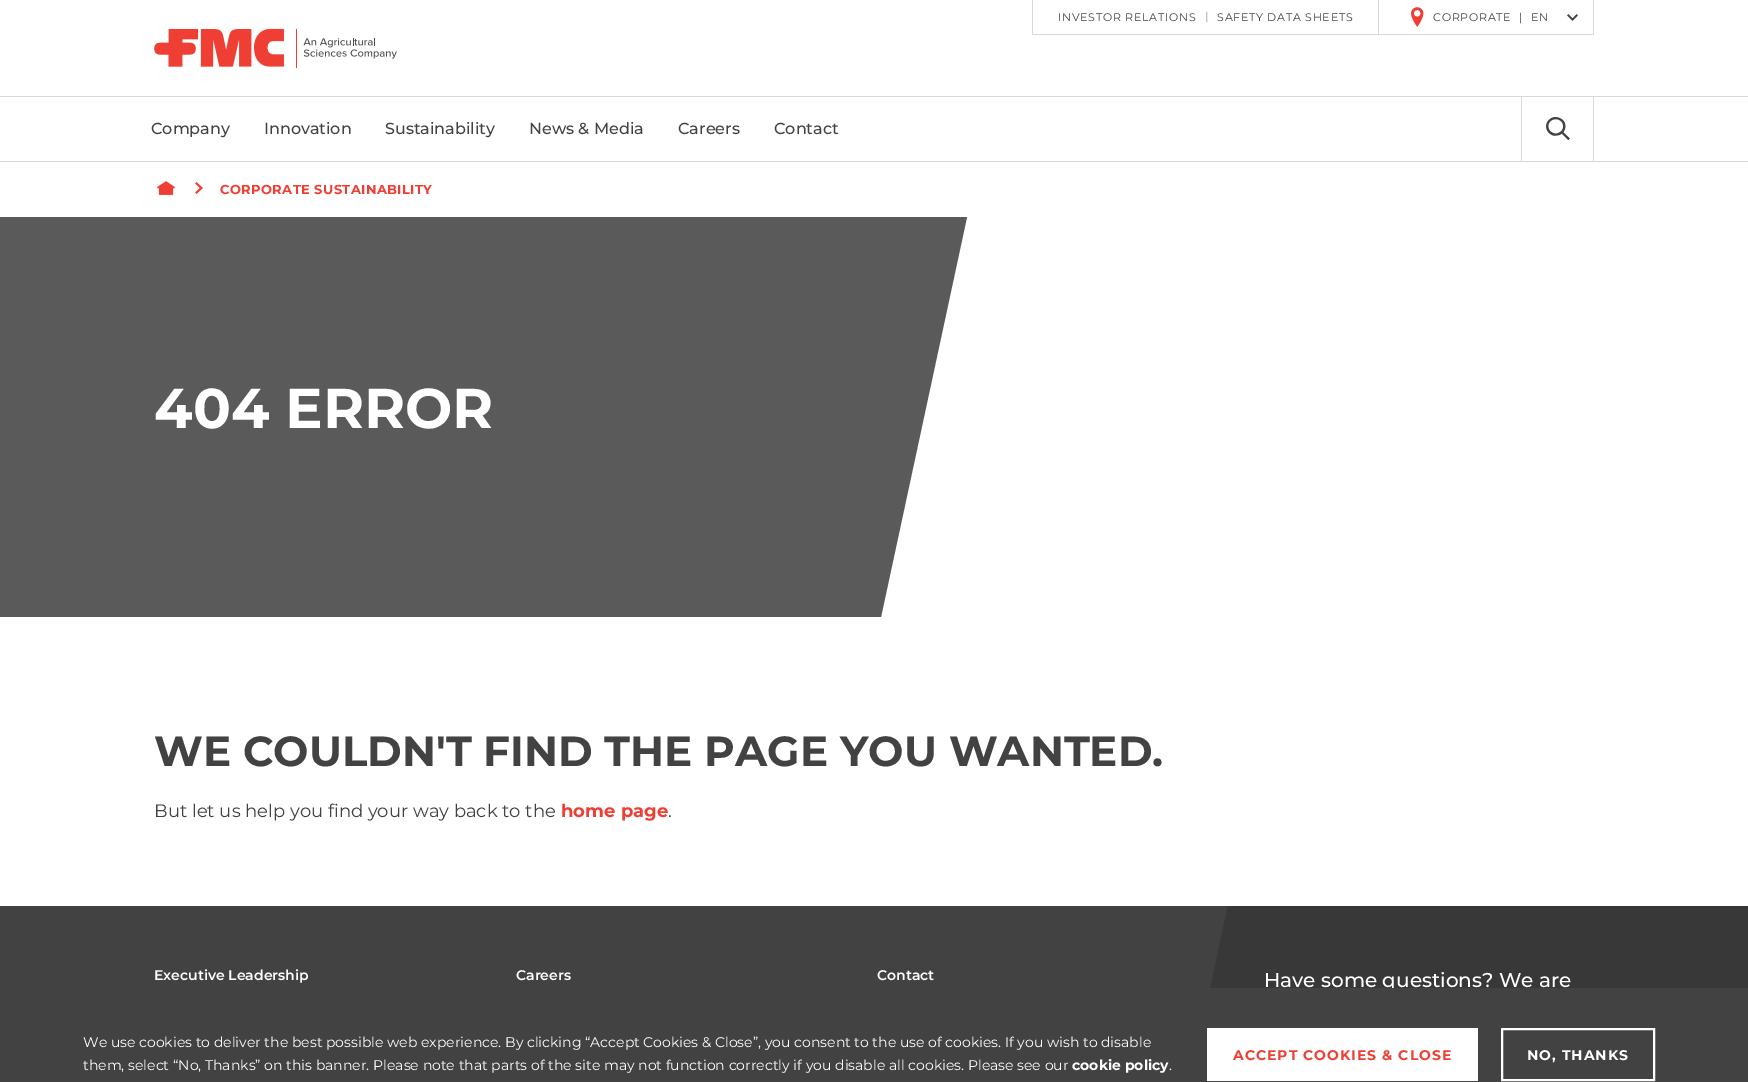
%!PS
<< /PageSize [1748 1082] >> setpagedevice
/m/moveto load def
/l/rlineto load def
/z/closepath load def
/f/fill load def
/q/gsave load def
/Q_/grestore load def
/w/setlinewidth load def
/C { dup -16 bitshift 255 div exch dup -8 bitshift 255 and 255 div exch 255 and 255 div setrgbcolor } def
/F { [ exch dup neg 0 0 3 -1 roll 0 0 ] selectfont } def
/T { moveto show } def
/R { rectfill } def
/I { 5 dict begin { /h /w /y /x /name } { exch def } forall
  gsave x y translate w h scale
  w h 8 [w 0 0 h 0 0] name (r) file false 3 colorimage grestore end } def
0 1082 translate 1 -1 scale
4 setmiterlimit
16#FFFFFF C
0 0 1748 1082 R
16#D8D8D8 C
1593 0 1 35 R
1032 34 562 1 R
1032 0 1 35 R
1378 0 1 34 R
/Montserrat-Regular 11 F
16#424242 C
1058 21 m .75 0 (INVESTOR RELATIONS) ashow
/Montserrat-Medium 11 F
16#AFAFAF C
1205 20 m .75 0 (|) ashow
/Montserrat-Regular 11 F
16#424242 C
1217 21 m .75 0 (SAFETY DATA SHEETS) ashow
(1.rgb) 1411 7 13 20 I
1433 21 m .75 0 (CORPORATE) ashow
1519 21 m .75 0 (|) ashow
1531 21 m .75 0 (EN) ashow
(2.rgb) 1567 14 11 7 I
(3.rgb) 154 28 243 40 I
16#D8D8D8 C
0 96 1748 1 R
0 161 1748 1 R
/Montserrat-Medium 16 F
16#424242 C
(Company) 151 134 T
(Innovation) 264 134 T
(Sustainability) 385 134 T
(News & Media) 529 134 T
(Careers) 678 134 T
(Contact) 774 134 T
16#D8D8D8 C
1593 97 1 64 R
1521 97 1 64 R
(4.rgb) 1546 117 24 23 I
(5.rgb) 157 181 18 14 I
(6.rgb) 195 182 8 12 I
/Montserrat-Bold 13 F
16#EF3E33 C
220 194 m .4 0 (CORPORATE SUSTAINABILITY) ashow
16#5A5A5A C
-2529 217 m 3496 0 l -86 400 l -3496 0 l z f
/Montserrat-Bold 56 F
16#FFFFFF C
(404 ERROR) 154 428 T
/Montserrat-Bold 42 F
16#424242 C
(WE COULDN'T FIND THE PAGE YOU WANTED.) 154 766 T
/Montserrat-Regular 18 F
(But let us help you find your way back to the) 154 817 T
/Montserrat-Bold 18 F
16#EF3E33 C
(home page) 561 817 T
/Montserrat-Regular 18 F
16#424242 C
(.) 668 817 T
0 906 1228 82 R
/Montserrat-SemiBold 14 F
16#FFFFFF C
(Executive Leadership) 154 980 T
(Careers) 516 980 T
(Contact) 877 980 T
q
0 906 1748 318 rectclip
16#383838 C
1648 -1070 m 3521 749 l -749 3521 l -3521 -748 l z f
Q_
/Montserrat-Medium 20 F
(Have some questions? We are) 1264 987 T
16#424242 C
0 988 1748 94 R
/Montserrat-Regular 14 F
16#FFFFFF C
(We use cookies to deliver the best possible web experience. By clicking “Accept Cookies & Close”, you consent to the use of cookies. If you wish to disable) 83 1047 T
(them, select “No, Thanks” on this banner. Please note that parts of the site may not function correctly if you disable all cookies. Please see our) 83 1070 T
/Montserrat-Bold 14 F
(cookie policy) 1072 1070 T
/Montserrat-Regular 14 F
(.) 1169 1070 T
1207 1028 271 53 R
/Montserrat-Bold 14 F
16#EF3E33 C
1233 1060 m 1 0 (ACCEPT COOKIES & CLOSE) ashow
16#FFFFFF C
2 w
1502 1029 152 51 rectstroke
1527 1060 m 1 0 (NO, THANKS) ashow
showpage
